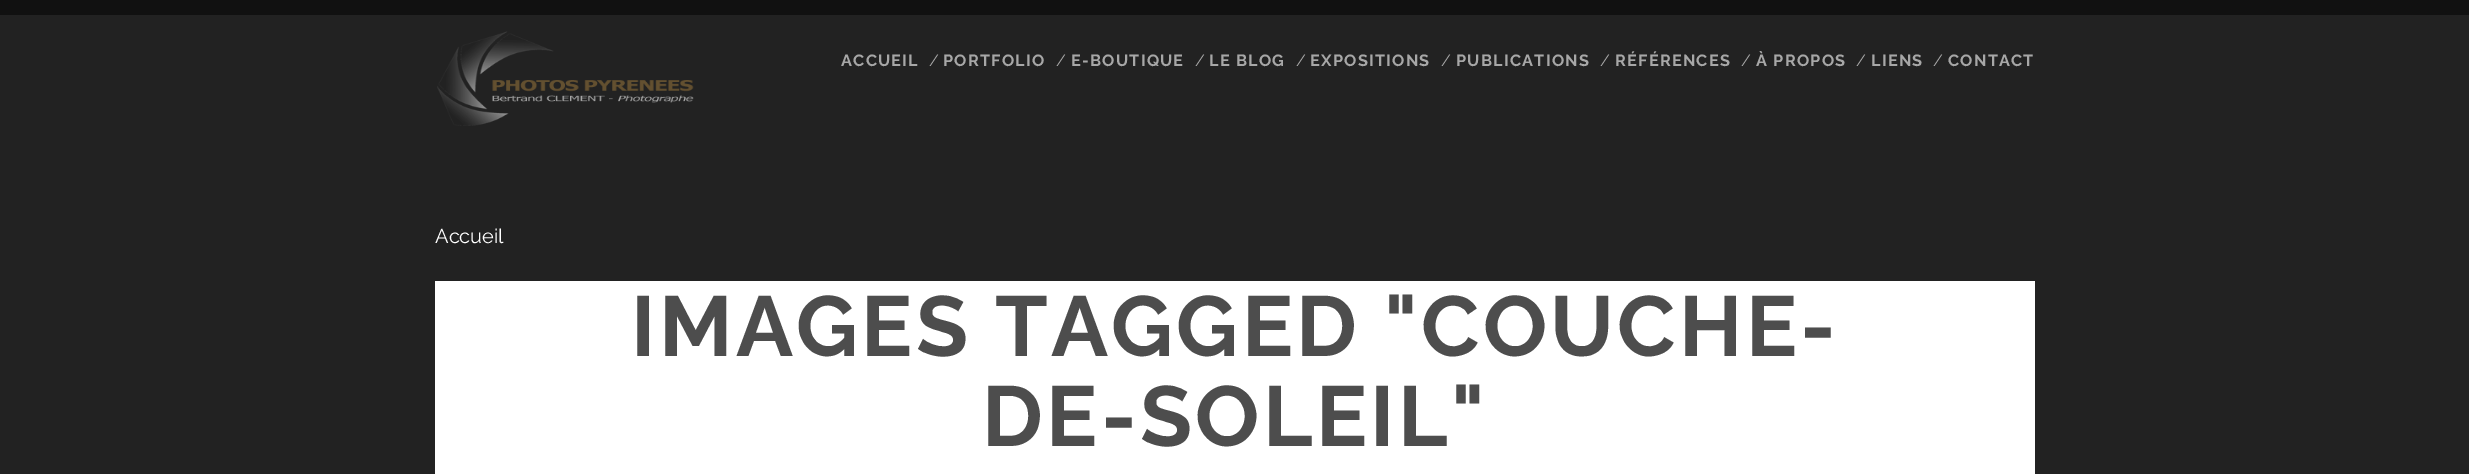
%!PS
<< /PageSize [2469 474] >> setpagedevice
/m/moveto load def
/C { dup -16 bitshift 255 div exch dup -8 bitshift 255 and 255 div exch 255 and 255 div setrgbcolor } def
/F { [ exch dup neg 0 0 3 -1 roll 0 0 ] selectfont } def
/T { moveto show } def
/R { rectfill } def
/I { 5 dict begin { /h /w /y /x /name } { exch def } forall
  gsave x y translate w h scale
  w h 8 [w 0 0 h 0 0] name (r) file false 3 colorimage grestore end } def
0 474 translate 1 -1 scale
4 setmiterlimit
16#222222 C
0 0 2469 474 R
16#111111 C
0 0 2469 15 R
(1.rgb) 437 31 257 95 I
/Raleway-Bold 16.25 F
16#A7A7A7 C
841 66 m 1.25 0 (ACCUEIL) ashow
/Raleway-Regular 16.25 F
(/) 929 66 T
/Raleway-Bold 16.25 F
943 66 m 1.25 0 (PORTFOLIO) ashow
/Raleway-Regular 16.25 F
(/) 1056 66 T
/Raleway-Bold 16.25 F
1071 66 m 1.25 0 (E-BOUTIQUE) ashow
/Raleway-Regular 16.25 F
(/) 1195 66 T
/Raleway-Bold 16.25 F
1209 66 m 1.25 0 (LE BLOG) ashow
/Raleway-Regular 16.25 F
(/) 1296 66 T
/Raleway-Bold 16.25 F
1310 66 m 1.25 0 (EXPOSITIONS) ashow
/Raleway-Regular 16.25 F
(/) 1441 66 T
/Raleway-Bold 16.25 F
1456 66 m 1.25 0 (PUBLICATIONS) ashow
/Raleway-Regular 16.25 F
(/) 1600 66 T
/Raleway-Bold 16.25 F
1615 66 m 1.25 0 (RÉFÉRENCES) ashow
/Raleway-Regular 16.25 F
(/) 1741 66 T
/Raleway-Bold 16.25 F
1756 66 m 1.25 0 (À PROPOS) ashow
/Raleway-Regular 16.25 F
(/) 1856 66 T
/Raleway-Bold 16.25 F
1871 66 m 1.25 0 (LIENS) ashow
/Raleway-Regular 16.25 F
(/) 1933 66 T
/Raleway-Bold 16.25 F
1948 66 m 1.25 0 (CONTACT) ashow
/Raleway-Regular 20 F
16#FFFFFF C
(Accueil) 435 243 T
435 281 1600 193 R
/Raleway-Bold 85 F
16#4D4D4D C
631 356 m 3.4 0 (IMAGES TAGGED "COUCHE-) ashow
982 446 m 3.4 0 (DE-SOLEIL") ashow
showpage
